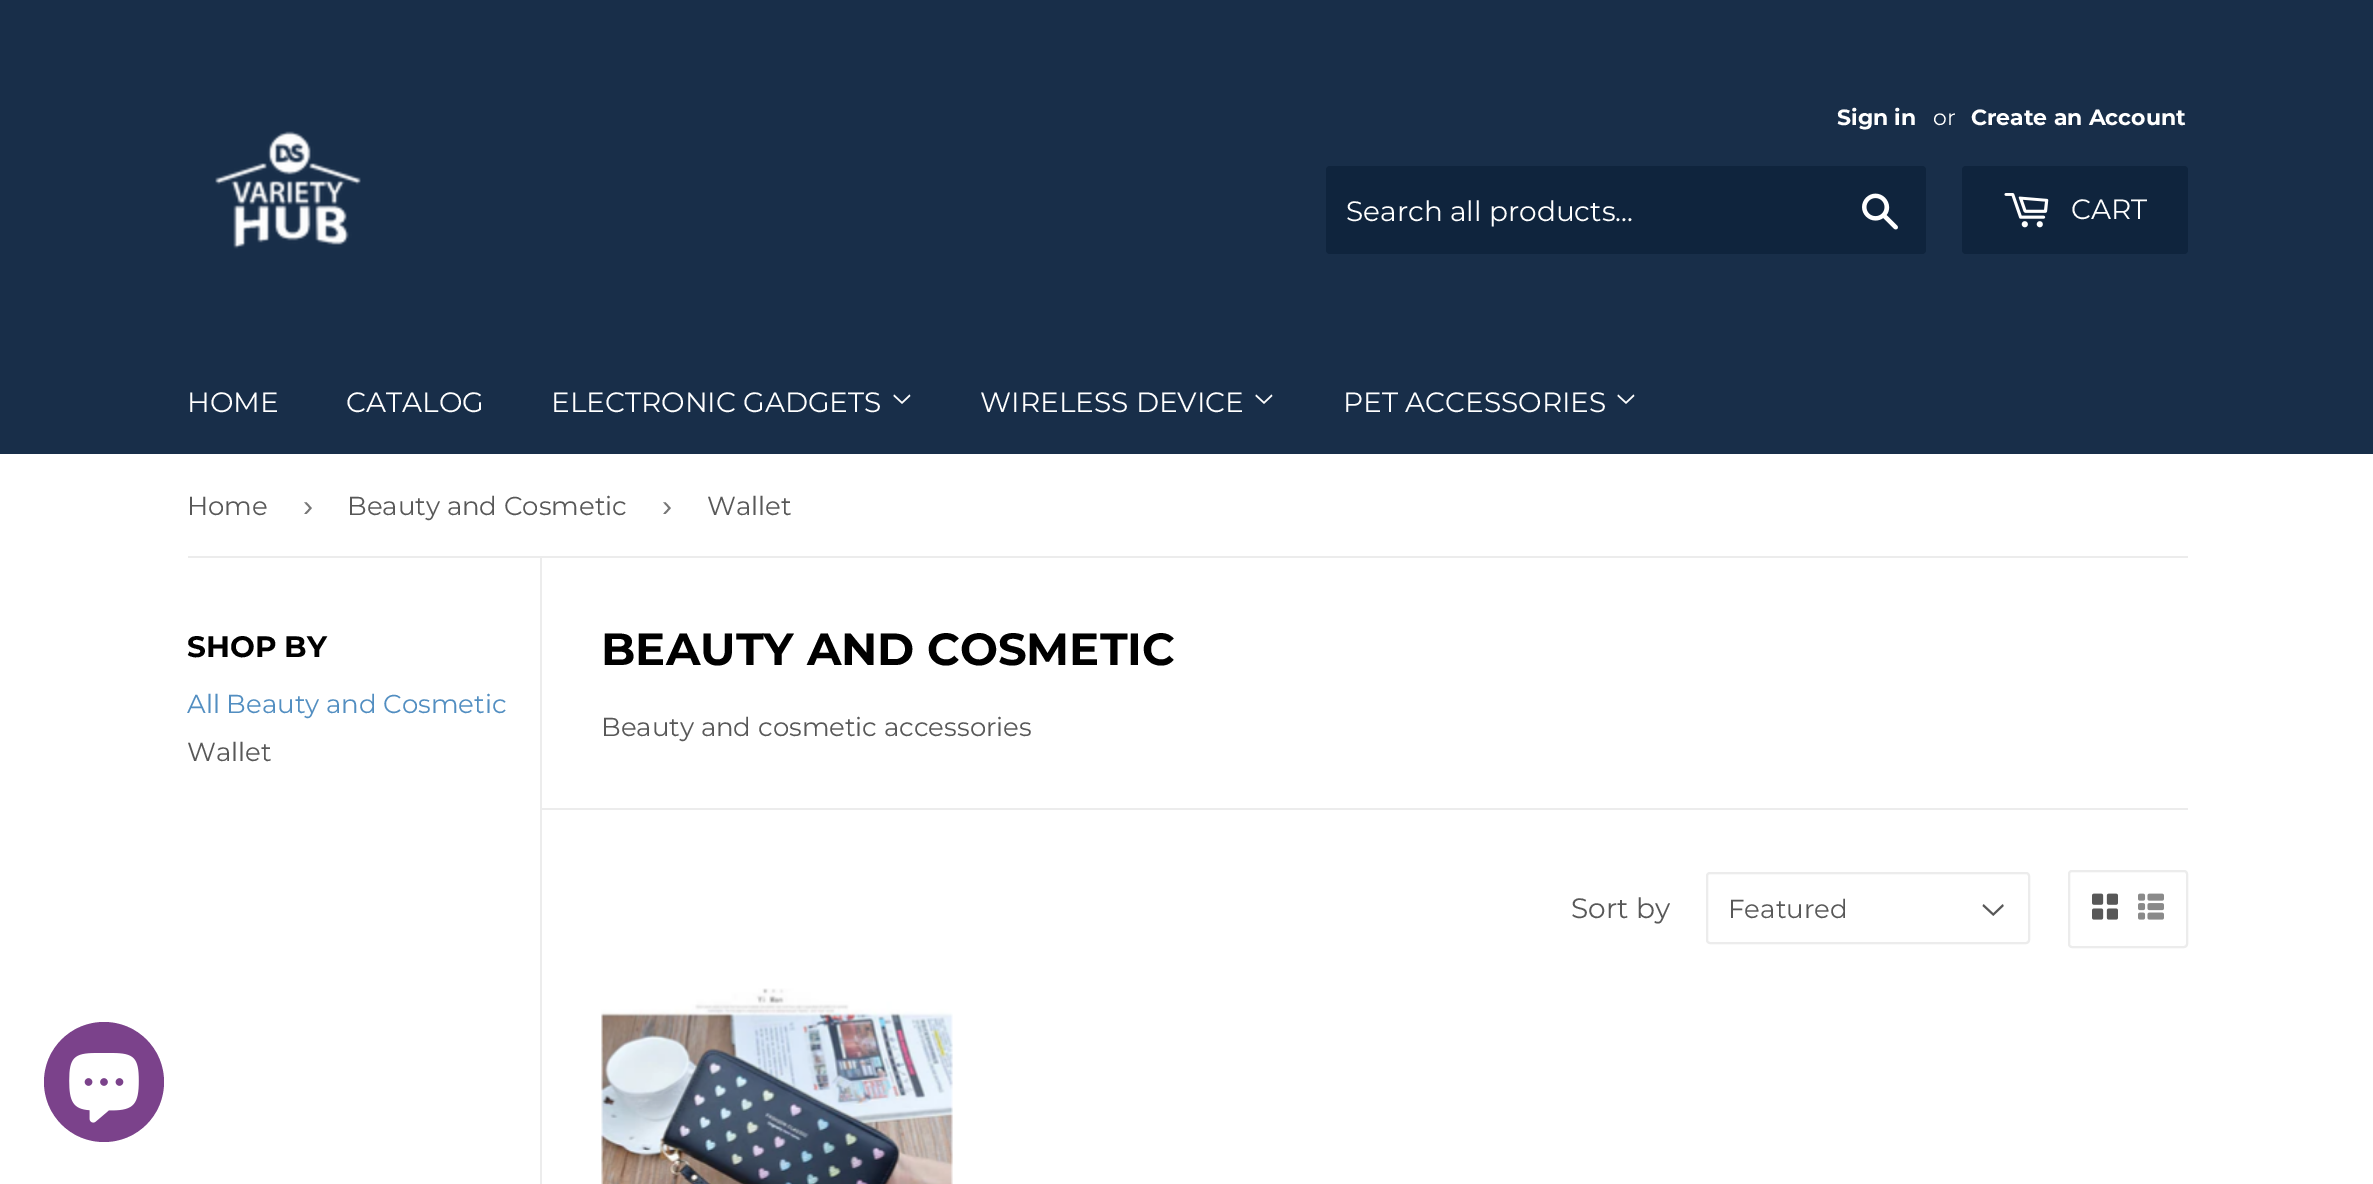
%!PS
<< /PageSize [2373 1184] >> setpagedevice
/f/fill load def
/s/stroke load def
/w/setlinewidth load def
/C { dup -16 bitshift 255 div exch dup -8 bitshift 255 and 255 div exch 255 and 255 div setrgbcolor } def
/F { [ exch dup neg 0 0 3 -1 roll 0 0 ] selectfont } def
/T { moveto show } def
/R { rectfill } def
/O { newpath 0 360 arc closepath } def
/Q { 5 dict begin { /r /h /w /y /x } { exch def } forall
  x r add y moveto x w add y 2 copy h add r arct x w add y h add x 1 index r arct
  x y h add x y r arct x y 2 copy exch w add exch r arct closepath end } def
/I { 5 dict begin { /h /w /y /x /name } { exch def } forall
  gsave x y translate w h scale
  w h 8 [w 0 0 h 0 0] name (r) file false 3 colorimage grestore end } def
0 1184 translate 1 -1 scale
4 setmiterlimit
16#FFFFFF C
0 0 2373 1184 R
16#182E49 C
0 0 2373 454 R
(1.rgb) 215 131 146 118 I
/Montserrat-Bold 22 F
16#FFFFFF C
(Sign in) 1837 125 T
/Montserrat-Regular 22 F
(or) 1933 125 T
/Montserrat-Bold 22 F
(Create an Account) 1971 125 T
16#0F243D C
1326 166 600 88 4 Q f
/Montserrat-Regular 28 F
16#FFFFFF C
(Search all products...) 1346 221 T
(2.rgb) 1862 193 36 37 I
16#0F243D C
1962 166 226 88 4 Q f
(3.rgb) 2004 193 45 35 I
16#FFFFFF C
(CART) 2071 219 T
(HOME) 187 412 T
(CATALOG) 346 412 T
(ELECTRONIC GADGETS) 551 412 T
(4.rgb) 893 394 18 10 I
(WIRELESS DEVICE) 980 412 T
(4.rgb) 1255 394 18 10 I
(PET ACCESSORIES) 1343 412 T
(4.rgb) 1617 394 18 10 I
16#ECECEC C
188 556 2000 2 R
/Montserrat-Regular 26 F
16#585858 C
(Home) 187 515 T
/LiberationSans-Regular 30 F
16#767676 C
(›) 303 516 T
/Montserrat-Regular 26 F
16#585858 C
(Beauty and Cosmetic) 347 515 T
/LiberationSans-Regular 30 F
16#767676 C
(›) 662 516 T
/Montserrat-Regular 26 F
16#585858 C
(Wallet) 707 515 T
/Montserrat-Bold 29.5 F
16#000000 C
(SHOP BY) 187 657 T
/Montserrat-Regular 26 F
16#528EC1 C
(All Beauty and Cosmetic) 187 713 T
16#585858 C
(Wallet) 187 761 T
16#ECECEC C
540 558 2 626 R
/Montserrat-Bold 45 F
16#000000 C
(BEAUTY AND COSMETIC) 601 665 T
/Montserrat-Regular 26 F
16#585858 C
(Beauty and cosmetic accessories) 601 736 T
16#ECECEC C
542 808 1646 2 R
/Montserrat-Regular 28 F
16#585858 C
(Sort by) 1571 918 T
(5.rgb) 1982 904 22 12 I
16#ECECEC C
2 w
1707 873 322 70 3 Q s
/Montserrat-Regular 26 F
16#585858 C
(Featured) 1728 918 T
16#ECECEC C
2069 871 118 76 3 Q s
(6.rgb) 2092 893 26 27 I
(7.rgb) 2138 893 26 27 I
(8.rgb) 601 988 352 196 I
16#7B428B C
104 1082 60 O f
(9.rgb) 69 1053 70 70 I
showpage
